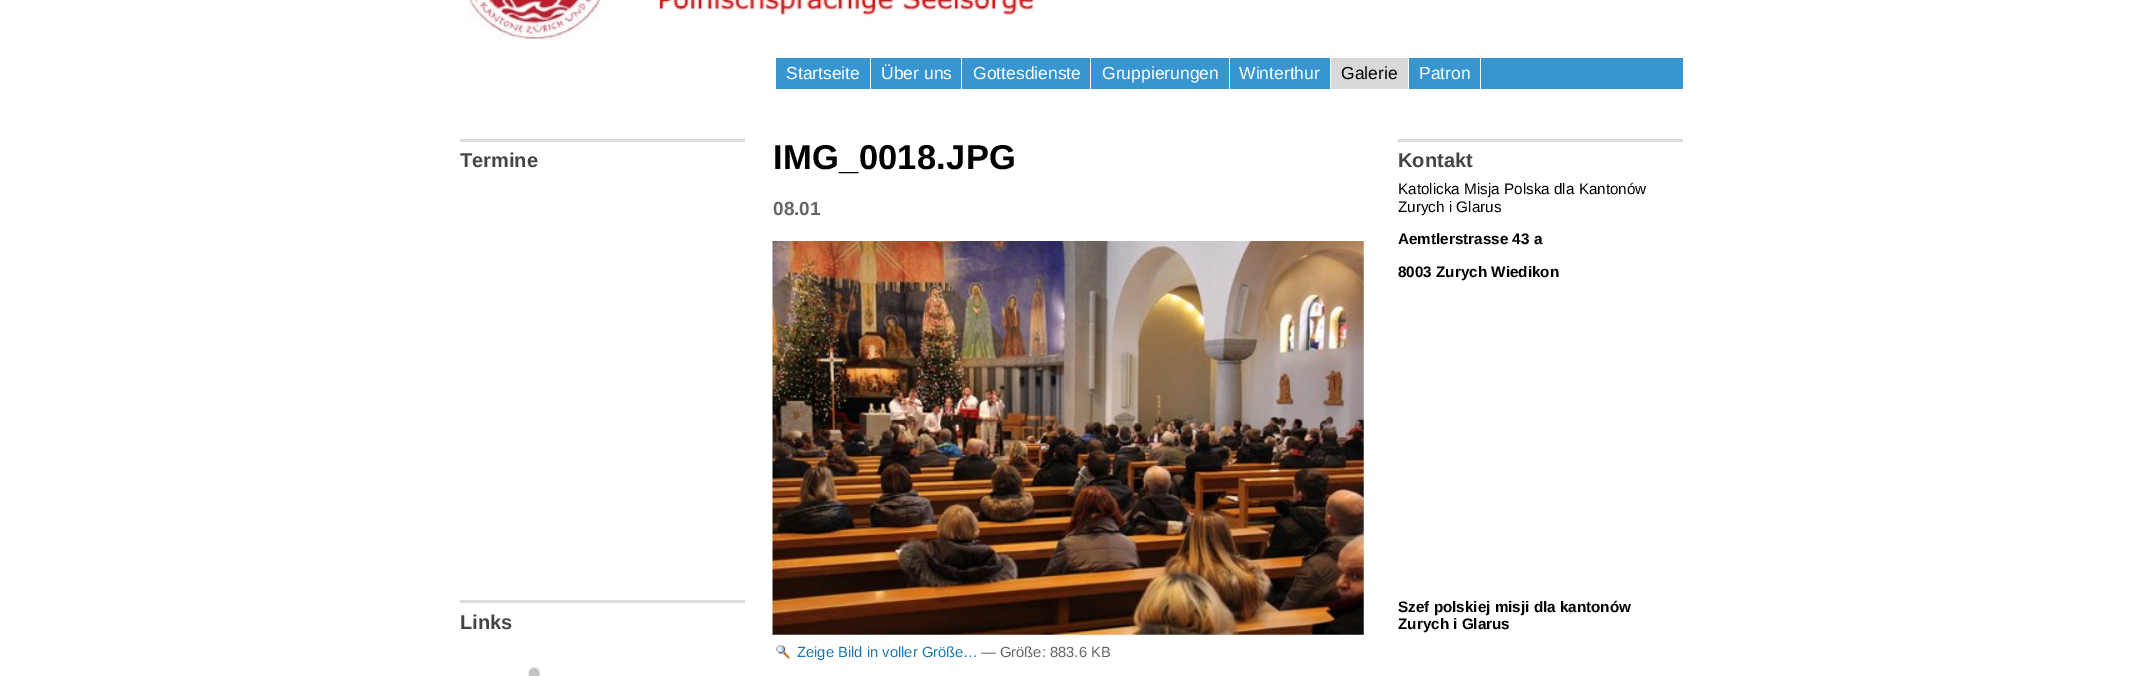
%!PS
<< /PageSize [2142 676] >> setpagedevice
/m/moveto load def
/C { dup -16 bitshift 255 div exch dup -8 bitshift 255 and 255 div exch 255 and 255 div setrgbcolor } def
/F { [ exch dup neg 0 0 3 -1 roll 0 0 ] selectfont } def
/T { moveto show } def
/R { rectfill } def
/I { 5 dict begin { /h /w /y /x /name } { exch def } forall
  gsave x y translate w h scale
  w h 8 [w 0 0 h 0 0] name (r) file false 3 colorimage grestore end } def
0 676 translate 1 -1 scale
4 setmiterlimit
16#FFFFFF C
0 0 2142 676 R
(1.rgb) 468 0 566 40 I
16#3796D2 C
776 58 907 31 R
16#FFFFFF C
870 58 1 31 R
/LiberationSans-Regular 17.5 F
(Startseite) 786 79 T
961 58 1 31 R
(Über uns) 881 79 T
1090 58 1 31 R
(Gottesdienste) 973 79 T
1229 58 1 31 R
(Gruppierungen) 1102 79 T
1330 58 1 31 R
(Winterthur) 1239 79 T
16#D9D9D9 C
1331 58 77 31 R
16#FFFFFF C
1408 58 1 31 R
16#000000 C
(Galerie) 1341 79 T
16#FFFFFF C
1480 58 1 31 R
(Patron) 1419 79 T
16#DCDCDC C
460 139 285 3 R
/LiberationSans-Bold 20 F
16#444444 C
(Termine) 460 167 T
16#DCDCDC C
460 600 285 3 R
16#444444 C
(Links) 460 629 T
(2.rgb) 527 667 14 9 I
/LiberationSans-Bold 34.5 F
16#000000 C
773 169 m .3 0 (IMG_0018.JPG) ashow
/LiberationSans-Bold 19 F
16#666666 C
(08.01) 773 215 T
(3.rgb) 772 241 592 394 I
(4.rgb) 776 644 15 15 I
/LiberationSans-Regular 14.75 F
16#1A75AE C
(Zeige Bild in voller Größe…) 797 657 T
16#666666 C
(— Größe: 883.6 KB) 981 657 T
16#DCDCDC C
1398 139 285 3 R
/LiberationSans-Bold 20 F
16#444444 C
(Kontakt) 1398 167 T
/LiberationSans-Regular 15.25 F
16#000000 C
(Katolicka Misja Polska dla Kantonów) 1398 194 T
(Zurych i Glarus) 1398 212 T
/LiberationSans-Bold 15.25 F
(Aemtlerstrasse 43 a) 1398 244 T
(8003 Zurych Wiedikon) 1398 277 T
(Szef polskiej misji dla kantonów) 1398 612 T
(Zurych i Glarus) 1398 629 T
showpage
